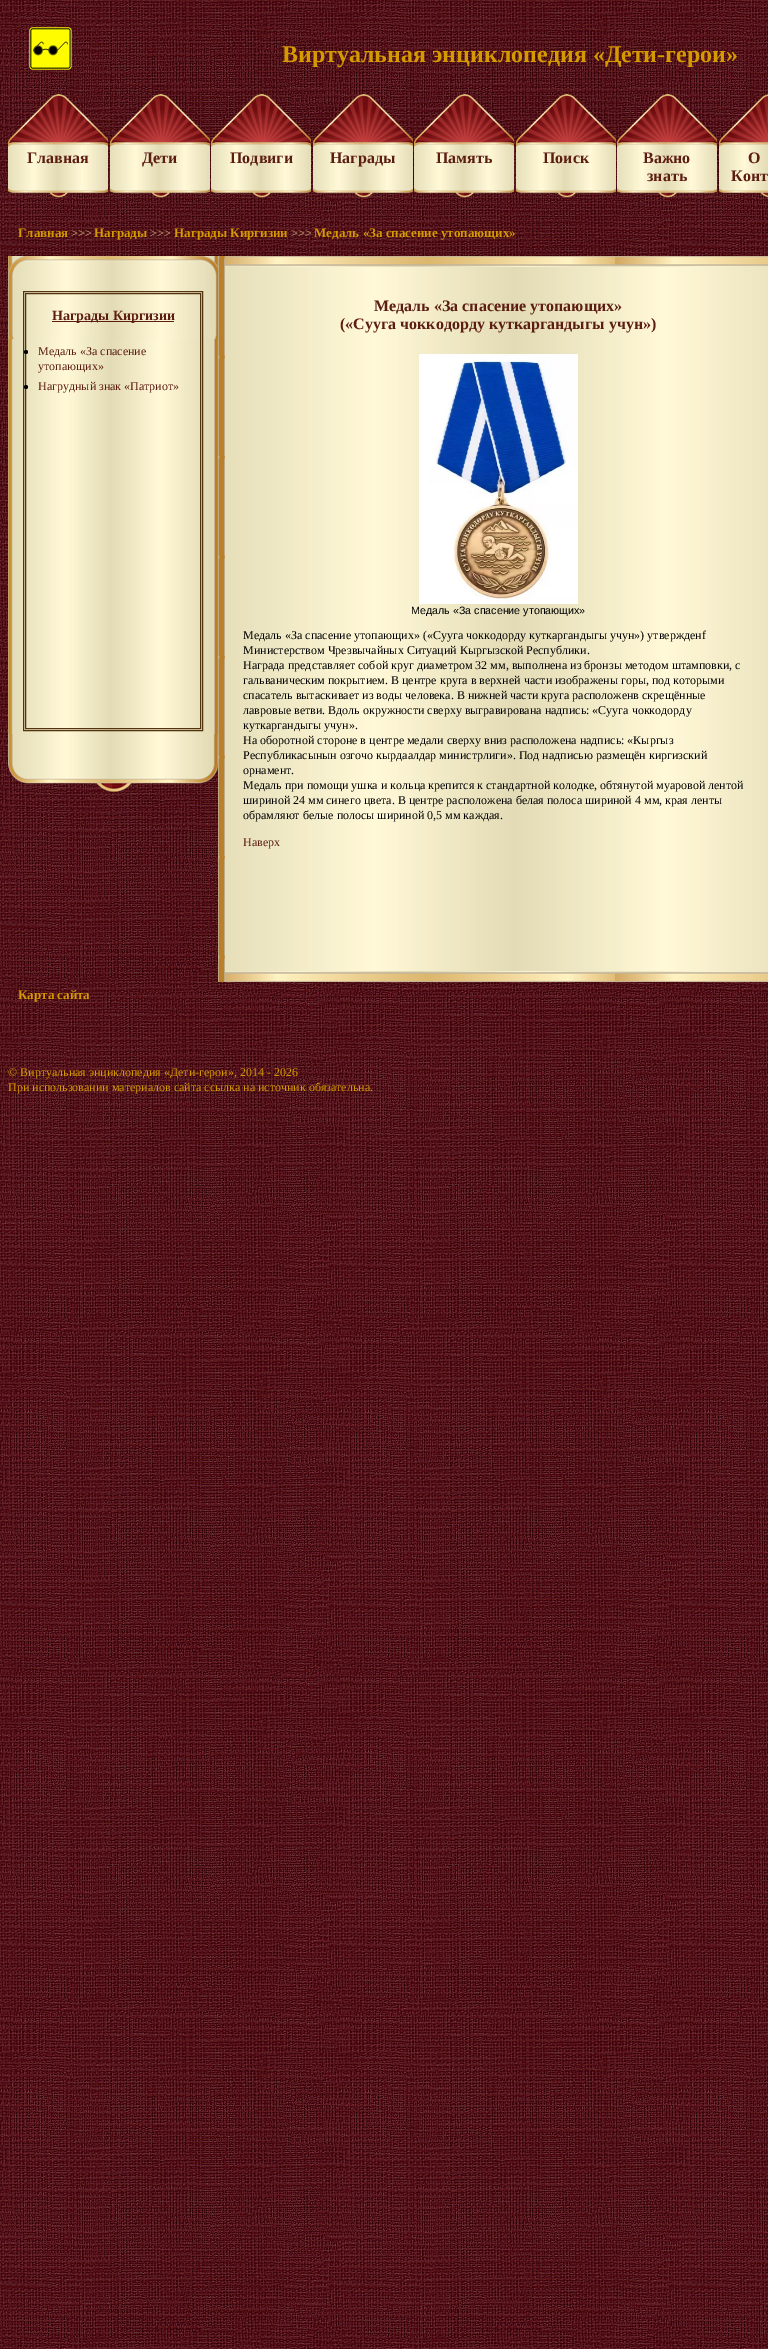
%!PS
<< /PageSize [768 2349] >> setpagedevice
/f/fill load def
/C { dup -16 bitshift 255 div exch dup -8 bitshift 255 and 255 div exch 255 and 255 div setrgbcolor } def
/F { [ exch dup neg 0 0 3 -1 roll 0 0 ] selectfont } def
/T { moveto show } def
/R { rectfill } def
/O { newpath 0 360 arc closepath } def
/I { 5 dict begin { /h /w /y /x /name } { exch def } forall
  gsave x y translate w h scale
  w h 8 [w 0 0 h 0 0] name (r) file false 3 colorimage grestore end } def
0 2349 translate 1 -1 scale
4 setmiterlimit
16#FFFFFF C
0 0 768 2349 R
(1.rgb) 0 0 768 2349 I
(2.rgb) 29 27 43 43 I
/LiberationSerif-Bold 24 F
16#D59A00 C
(Виртуальная энциклопедия «Дети-герои») 282 62 T
(3.rgb) 8 94 100 104 I
/LiberationSerif-Bold 16 F
16#5C1D12 C
(Главная) 27 163 T
(4.rgb) 110 94 100 104 I
(Дети) 142 163 T
(5.rgb) 211 94 100 104 I
(Подвиги) 230 163 T
(6.rgb) 313 94 100 104 I
(Награды) 330 163 T
(7.rgb) 414 94 100 104 I
(Память) 436 163 T
(8.rgb) 516 94 100 104 I
(Поиск) 543 163 T
(9.rgb) 617 94 100 104 I
(Важно) 643 163 T
(знать) 647 181 T
(10.rgb) 719 94 49 104 I
(О) 748 163 T
(Конт) 731 181 T
/LiberationSerif-Bold 13 F
16#D59A00 C
(Главная) 18 237 T
/LiberationSerif-Regular 12 F
16#CFB17D C
(>>>) 71 237 T
/LiberationSerif-Bold 13 F
16#D59A00 C
(Награды) 94 237 T
/LiberationSerif-Regular 12 F
16#CFB17D C
(>>>) 150 237 T
/LiberationSerif-Bold 13 F
16#D59A00 C
(Награды Киргизии) 174 237 T
/LiberationSerif-Regular 12 F
16#CFB17D C
(>>>) 291 237 T
/LiberationSerif-Bold 13 F
16#D59A00 C
(Медаль «За спасение утопающих») 314 237 T
(11.rgb) 8 256 210 478 I
(12.rgb) 8 256 210 83 I
16#54330F C
23.5 291.5 179 439 rectstroke
25.5 293.5 175 435 rectstroke
16#5C1D12 C
52 321 122 1 R
/LiberationSerif-Bold 14 F
(Награды Киргизии) 52 320 T
16#000000 C
26 352 2 O f
/LiberationSerif-Regular 12 F
16#5C1D12 C
(Медаль «За спасение) 38 355 T
(утопающих») 38 370 T
16#000000 C
26 387 2 O f
16#5C1D12 C
(Нагрудный знак «Патриот») 38 390 T
(13.rgb) 8 734 210 58 I
(14.rgb) 218 267 550 704 I
(15.rgb) 218 256 550 11 I
(16.rgb) 225 971 543 11 I
(17.rgb) 218 256 7 726 I
/LiberationSerif-Bold 16 F
(Медаль «За спасение утопающих») 374 311 T
(\(«Сууга чоккодорду куткаргандыгы учун»\)) 340 329 T
(18.rgb) 419 354 159 250 I
/LiberationSans-Regular 10.7 F
16#000000 C
(Медаль «За спасение утопающих») 411 614 T
/LiberationSerif-Regular 12 F
(Медаль «За спасение утопающих» \(«Сууга чоккодорду куткаргандыгы учун»\) утвержденf) 243 639 T
(Министерством Чрезвычайных Ситуаций Кыргызской Республики.) 243 654 T
(Награда представляет собой круг диаметром 32 мм, выполнена из бронзы методом штамповки, с) 243 669 T
(гальваническим покрытием. В центре круга в верхней части изображены горы, под которыми) 243 684 T
(спасатель вытаскивает из воды человека. В нижней части круга расположенв скрещённые) 243 699 T
(лавровые ветви. Вдоль окружности сверху выгравирована надпись: «Сууга чоккодорду) 243 714 T
(куткаргандыгы учун».) 243 729 T
(На оборотной стороне в центре медали сверху вниз расположена надпись: «Кыргыз) 243 744 T
(Республикасынын озгочо кырдаалдар министрлиги». Под надписью размещён киргизский) 243 759 T
(орнамент.) 243 774 T
(Медаль при помощи ушка и кольца крепится к стандартной колодке, обтянутой муаровой лентой) 243 789 T
(шириной 24 мм синего цвета. В центре расположена белая полоса шириной 4 мм, края ленты) 243 804 T
(обрамляют белые полосы шириной 0,5 мм каждая.) 243 819 T
16#5C1D12 C
(Наверх) 243 846 T
/LiberationSerif-Bold 13 F
16#D59A00 C
(Карта сайта) 18 999 T
/LiberationSerif-Regular 12 F
(© Виртуальная энциклопедия «Дети-герои», 2014 - 2026) 8 1076 T
(При использовании материалов сайта ссылка на источник обязательна.) 8 1091 T
showpage
